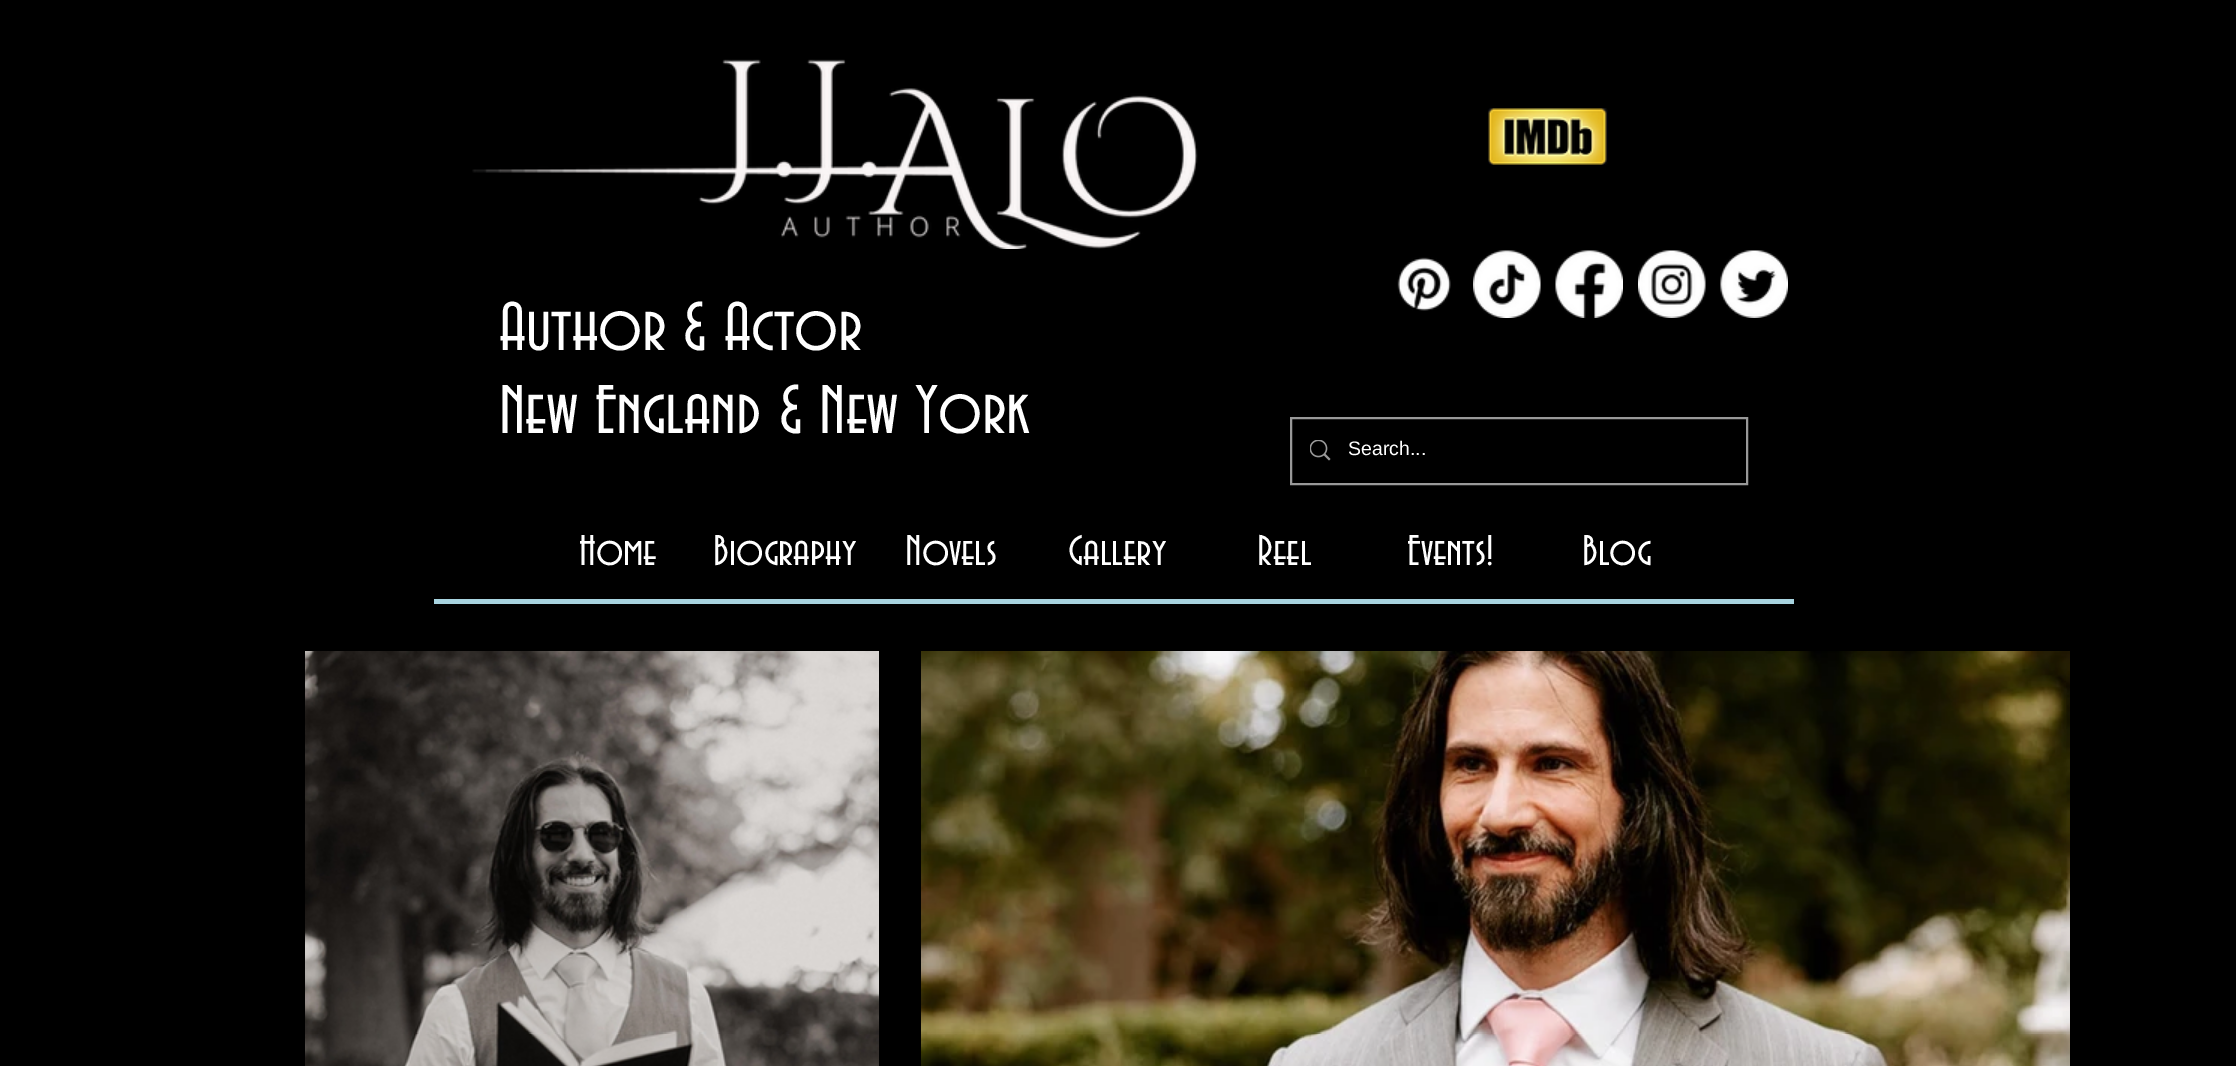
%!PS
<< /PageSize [2236 1066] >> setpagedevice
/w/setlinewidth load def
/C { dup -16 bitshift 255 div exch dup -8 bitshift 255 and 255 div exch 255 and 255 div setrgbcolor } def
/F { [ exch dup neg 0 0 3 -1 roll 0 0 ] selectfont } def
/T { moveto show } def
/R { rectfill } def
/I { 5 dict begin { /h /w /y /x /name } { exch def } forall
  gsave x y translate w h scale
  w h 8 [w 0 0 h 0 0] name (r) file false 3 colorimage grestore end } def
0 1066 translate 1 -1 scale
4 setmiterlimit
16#000000 C
0 0 2236 1066 R
(1.rgb) 472 59 726 190 I
(2.rgb) 1488 108 120 57 I
(3.rgb) 1397 257 54 54 I
(4.rgb) 1473 250 68 68 I
(5.rgb) 1555 250 68 68 I
(6.rgb) 1638 250 68 68 I
(7.rgb) 1720 250 68 68 I
/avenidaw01-Regular 72 F
16#FFFFFF C
(Author & Actor) 499 350 T
(New England & New York) 499 433 T
16#999999 C
2 w
1291 418 456 66 rectstroke
(8.rgb) 1310 440 21 21 I
/LiberationSans-Regular 19.5 F
16#FFFFFF C
(Search...) 1348 455 T
/avenidaw01-Regular 45 F
(Home) 579 565 T
(Biography) 713 565 T
(Novels) 905 565 T
(Gallery) 1068 565 T
(Reel) 1257 565 T
(Events!) 1407 565 T
(Blog) 1582 565 T
16#A8D4E0 C
434 599 1360 5 R
(9.rgb) 305 651 574 415 I
(10.rgb) 921 651 1149 415 I
showpage
